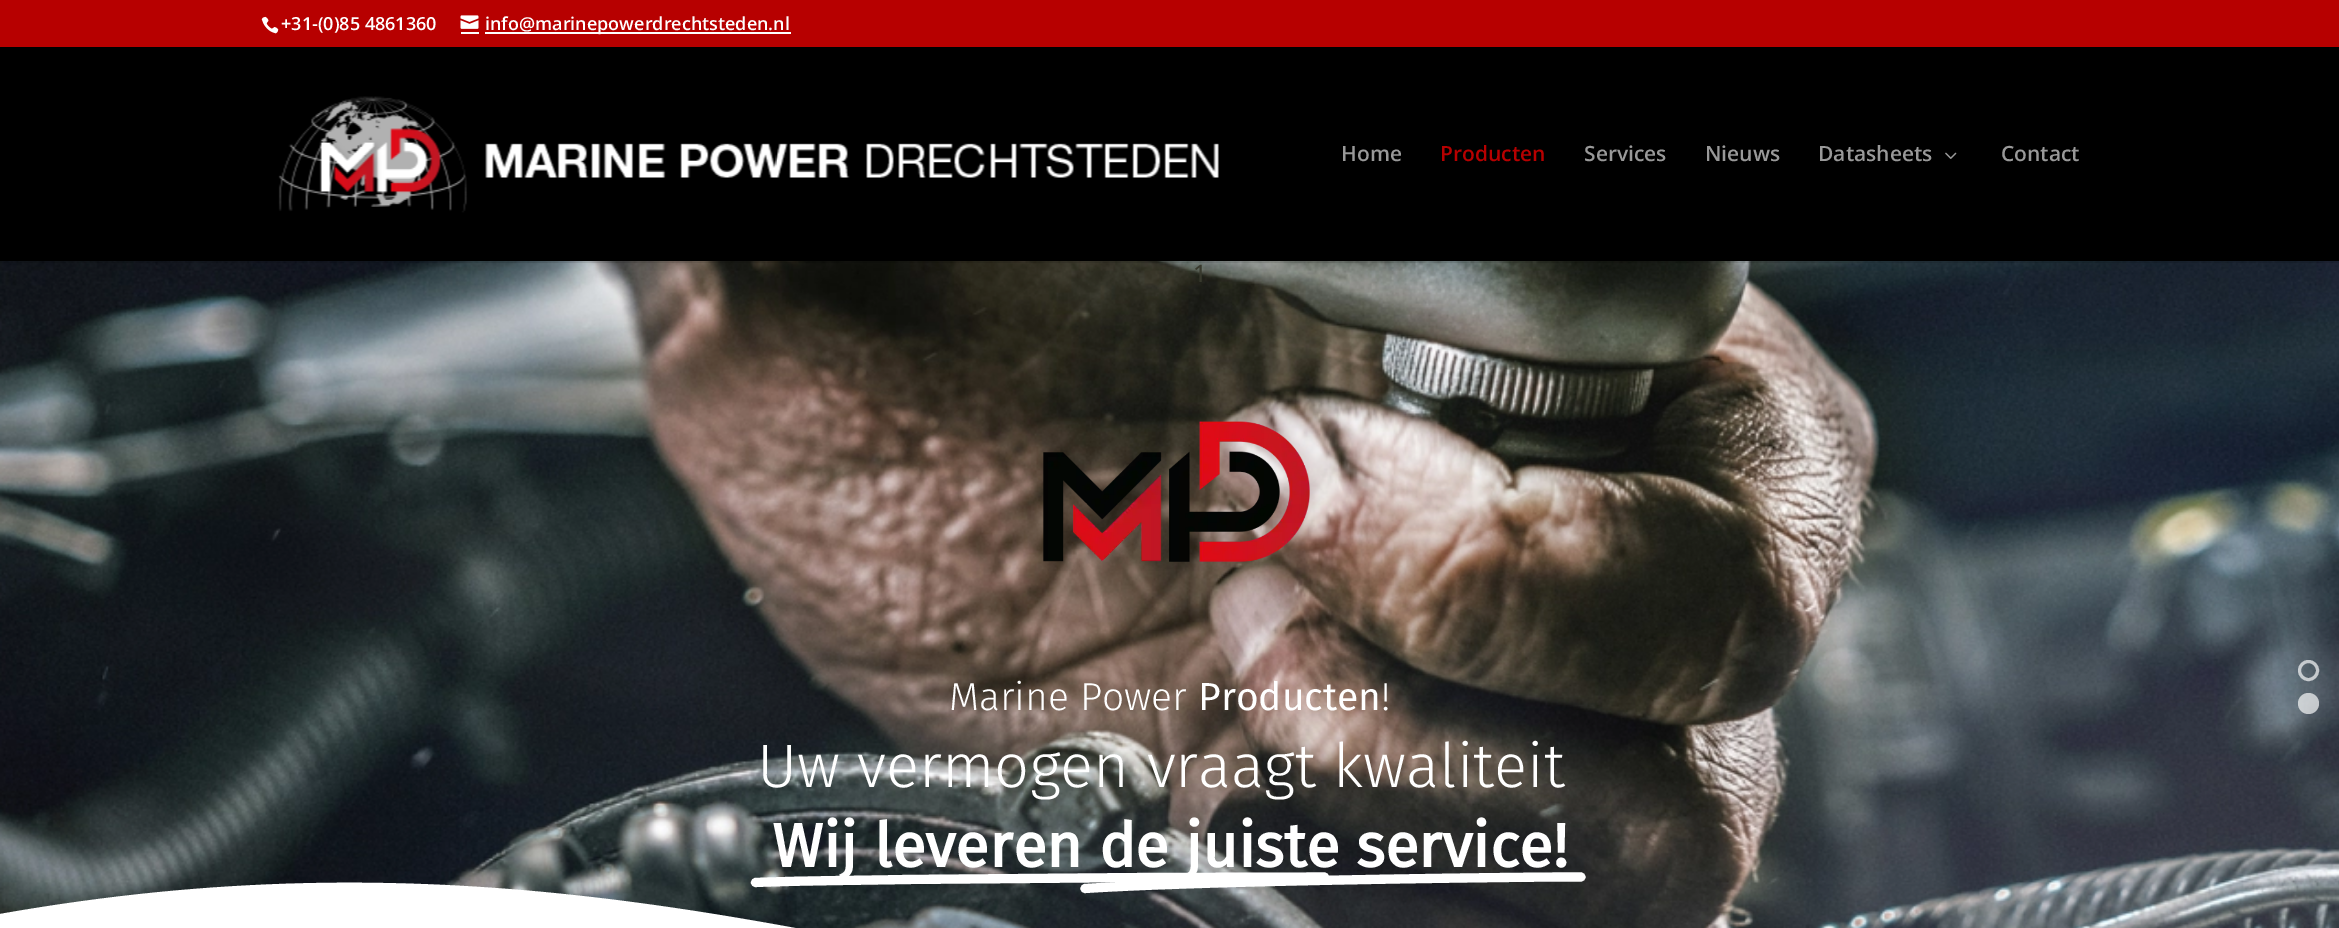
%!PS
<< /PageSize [2339 928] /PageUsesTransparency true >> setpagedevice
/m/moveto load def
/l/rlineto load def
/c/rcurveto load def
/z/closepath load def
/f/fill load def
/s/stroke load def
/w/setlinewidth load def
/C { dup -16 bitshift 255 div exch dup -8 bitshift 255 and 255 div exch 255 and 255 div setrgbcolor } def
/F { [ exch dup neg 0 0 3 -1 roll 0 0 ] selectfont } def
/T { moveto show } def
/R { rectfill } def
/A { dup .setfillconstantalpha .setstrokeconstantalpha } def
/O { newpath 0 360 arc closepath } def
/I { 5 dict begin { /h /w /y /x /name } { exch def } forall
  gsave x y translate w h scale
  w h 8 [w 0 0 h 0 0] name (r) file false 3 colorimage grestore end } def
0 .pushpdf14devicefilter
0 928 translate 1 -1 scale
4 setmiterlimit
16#FFFFFF C
0 0 2339 928 R
16#B70000 C
0 0 2339 47 R
(1.rgb) 261 16 18 18 I
/OpenSans-SemiBold 18 F
16#FFFFFF C
(+31-\(0\)85 4861360) 281 30 T
(2.rgb) 460 15 19 14 I
485 32 306 2 R
(info@marinepowerdrechtsteden.nl) 485 30 T
461 32 18 2 R
(5.rgb) 0 261 2339 667 I
0.1 A
16#000000 C
0 261 2339 2 R
1 A
0 47 2339 214 R
(3.rgb) 278 96 941 117 I
/OpenSans-SemiBold 21 F
16#999999 C
(Home) 1341 161 T
16#B70000 C
(Producten) 1440 161 T
16#999999 C
(Services) 1584 161 T
(Nieuws) 1705 161 T
(Datasheets) 1818 161 T
(4.rgb) 1945 152 12 7 I
(Contact) 2001 161 T
/OpenSans-Medium 24 F
16#38392D C
(1) 1193 282 T
(6.rgb) 1043 421 267 150 I
/FiraSans-Light 39 F
16#FFFFFF C
(Marine Power) 949 710 T
/FiraSans-Regular 39 F
(Producten) 1198 710 T
/FiraSans-Light 39 F
(!) 1381 710 T
/FiraSans-Light 61.5 F
(Uw vermogen vraagt kwaliteit) 757 787 T
0 914 m 865 -153 1243 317 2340 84 c 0 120 l -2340 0 l 0 -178 l z f
9.1 w
1 setlinecap
1 setlinejoin
755.5 882.5 m 50 -2 99.5 -2 149.5 -3 c 238 -2 l 181.5 -.5 l s
1085 888.5 m 130 -8.5 478.5 -12 496 -11.5 c s
/FiraSans-Bold 61.5 F
(Wij leveren de juiste service!) 772 867 T
0.67 A
3 w
0 setlinecap
0 setlinejoin
2308.5 670.5 9 O s
2308.5 703.5 10.5 O f
.poppdf14devicefilter showpage
